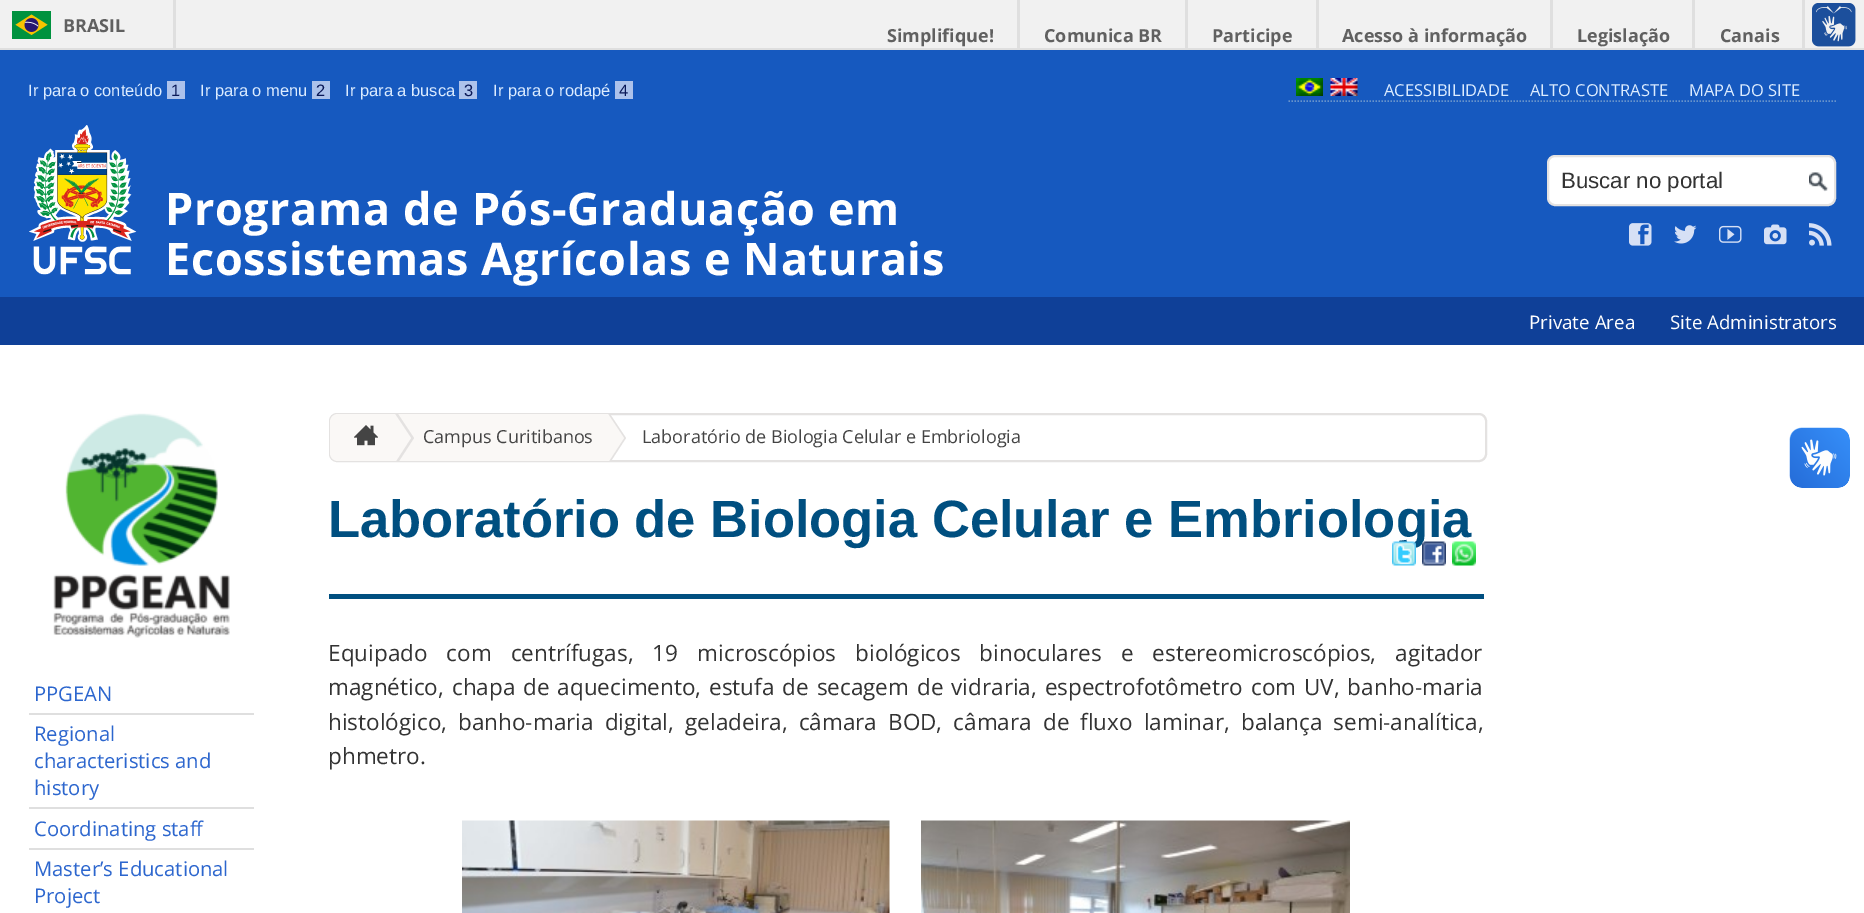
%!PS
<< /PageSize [1864 913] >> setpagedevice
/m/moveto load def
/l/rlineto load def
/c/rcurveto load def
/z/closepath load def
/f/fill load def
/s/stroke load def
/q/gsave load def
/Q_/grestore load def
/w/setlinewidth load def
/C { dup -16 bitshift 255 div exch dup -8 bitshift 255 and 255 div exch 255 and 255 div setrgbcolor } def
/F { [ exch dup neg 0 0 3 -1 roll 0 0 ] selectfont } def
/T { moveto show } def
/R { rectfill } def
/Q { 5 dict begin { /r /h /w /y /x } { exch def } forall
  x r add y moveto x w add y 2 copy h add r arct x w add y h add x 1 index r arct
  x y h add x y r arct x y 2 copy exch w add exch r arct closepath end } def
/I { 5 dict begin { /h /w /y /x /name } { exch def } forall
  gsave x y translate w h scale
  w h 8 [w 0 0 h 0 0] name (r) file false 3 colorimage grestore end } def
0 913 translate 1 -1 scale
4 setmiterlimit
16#FFFFFF C
0 0 1864 913 R
16#F1F1F1 C
0 0 1864 48 R
16#DFDFDF C
0 48 1864 2 R
173 0 3 48 R
(1.rgb) 12 11 39 28 I
/OpenSans-Bold 18 F
16#606060 C
(BRASIL) 63 32 T
(2.rgb) 1812 3 44 44 I
16#DFDFDF C
1017 0 3 48 R
16#606060 C
(Simplifique!) 887 42 T
16#DFDFDF C
1185 0 3 48 R
16#606060 C
(Comunica BR) 1044 42 T
16#DFDFDF C
1316 0 3 48 R
16#606060 C
(Participe) 1212 42 T
16#DFDFDF C
1550 0 3 48 R
16#606060 C
(Acesso à informação) 1342 42 T
16#DFDFDF C
1692 0 3 48 R
16#606060 C
(Legislação) 1577 42 T
16#DFDFDF C
1802 0 3 48 R
16#606060 C
(Canais) 1720 42 T
16#1659BF C
0 50 1864 247 R
/LiberationSans-Regular 16.5 F
16#DCECFF C
(Ir para o conteúdo) 28 96 T
16#ADC2EB C
167 81 18 18 R
16#0A1857 C
(1) 171 96 T
16#DCECFF C
(Ir para o menu) 200 96 T
16#ADC2EB C
312 81 18 18 R
16#0A1857 C
(2) 316 96 T
16#DCECFF C
(Ir para a busca) 345 96 T
16#ADC2EB C
459 81 18 18 R
16#0A1857 C
(3) 464 96 T
16#DCECFF C
(Ir para o rodapé) 493 96 T
16#ADC2EB C
615 81 18 18 R
16#0A1857 C
(4) 619 96 T
16#6893CB C
1.5 w
[1.5 1.5] 0 setdash
1288.5 101 m 547.5 0 l s
(3.rgb) 1296 78 27 18 I
(4.rgb) 1330 78 28 18 I
/OpenSans-Regular 16.5 F
16#DCECFF C
(ACESSIBILIDADE) 1384 96 T
(ALTO CONTRASTE) 1530 96 T
(MAPA DO SITE) 1689 96 T
16#FFFFFF C
1548 156 287 49 7 Q q f Q_
16#E4E2E1 C
2 w
[] 0 setdash
s
q
1560 168 263 24 rectclip
/LiberationSans-Regular 22.25 F
16#333333 C
(Buscar no portal) 1561 188 T
Q_
(5.rgb) 1809 172 20 20 I
(6.rgb) 29 125 108 150 I
/OpenSans-Bold 45 F
16#FFFFFF C
165 225 m .6 0 (Programa de Pós-Graduação em) ashow
165 275 m .6 0 (Ecossistemas Agrícolas e Naturais) ashow
(7.rgb) 1629 223 23 23 I
(8.rgb) 1674 225 23 19 I
(9.rgb) 1719 225 23 18 I
(10.rgb) 1764 224 23 21 I
(11.rgb) 1809 223 23 23 I
16#0F4098 C
0 297 1864 48 R
/OpenSans-Regular 18.75 F
16#FFFFFF C
(Private Area) 1529 329 T
(Site Administrators) 1670 329 T
16#E4E2E1 C
330 414 1156 47 7 Q s
16#FAF8F6 C
338 414 m 49 0 l 0 47 l -49 0 l -4.5 0 -8 -3.5 -8 -8 c 0 -31 l 0 -4.5 3.5 -8 8 -8 c z f
398 414 208 47 R
16#E4E2E1 C
398 414 m 16 24 l -15 23 l -9 0 l 0 -47 l z f
16#FAF8F6 C
395 414 m 16 24 l -15 23 l -9 0 l 0 -47 l z f
(12.rgb) 354 425 24 21 I
16#E4E2E1 C
610 414 m 16 24 l -15 23 l -3 0 l 0 -47 l z f
16#FAF8F6 C
608 414 m 16 24 l -15 23 l -3 0 l 0 -47 l z f
/OpenSans-Regular 18 F
16#444444 C
(Campus Curitibanos) 423 443 T
(Laboratório de Biologia Celular e Embriologia) 642 443 T
/LiberationSans-Bold 52.5 F
16#004F80 C
(Laboratório de Biologia Celular e Embriologia) 328 537 T
329 594 1155 5 R
(13.rgb) 1392 541 24 25 I
(14.rgb) 1422 541 24 25 I
(15.rgb) 1452 541 24 25 I
/OpenSans-Regular 22.5 F
16#333333 C
328 661 m 13.25 0 32 (Equipado com centrífugas, 19 microscópios biológicos binoculares e estereomicroscópios, agitador) widthshow
328 695 m 2.1 0 32 (magnético, chapa de aquecimento, estufa de secagem de vidraria, espectrofotômetro com UV, banho-maria) widthshow
328 730 m 5.25 0 32 (histológico, banho-maria digital, geladeira, câmara BOD, câmara de fluxo laminar, balança semi-analítica,) widthshow
(phmetro.) 328 764 T
(16.rgb) 462 820 428 93 I
(17.rgb) 921 820 429 93 I
(18.rgb) 53 413 177 225 I
16#DFDFDF C
29 713 225 2 R
/OpenSans-Regular 20.25 F
16#2C66CE C
(PPGEAN) 34 701 T
16#DFDFDF C
29 807 225 2 R
16#2C66CE C
(Regional) 34 741 T
(characteristics and) 34 768 T
(history) 34 795 T
16#DFDFDF C
29 848 225 2 R
16#2C66CE C
(Coordinating staff) 34 836 T
(Master’s Educational) 34 876 T
(Project) 34 903 T
(19.rgb) 1789 427 61 61 I
(20.rgb) 1790 428 60 60 I
showpage
